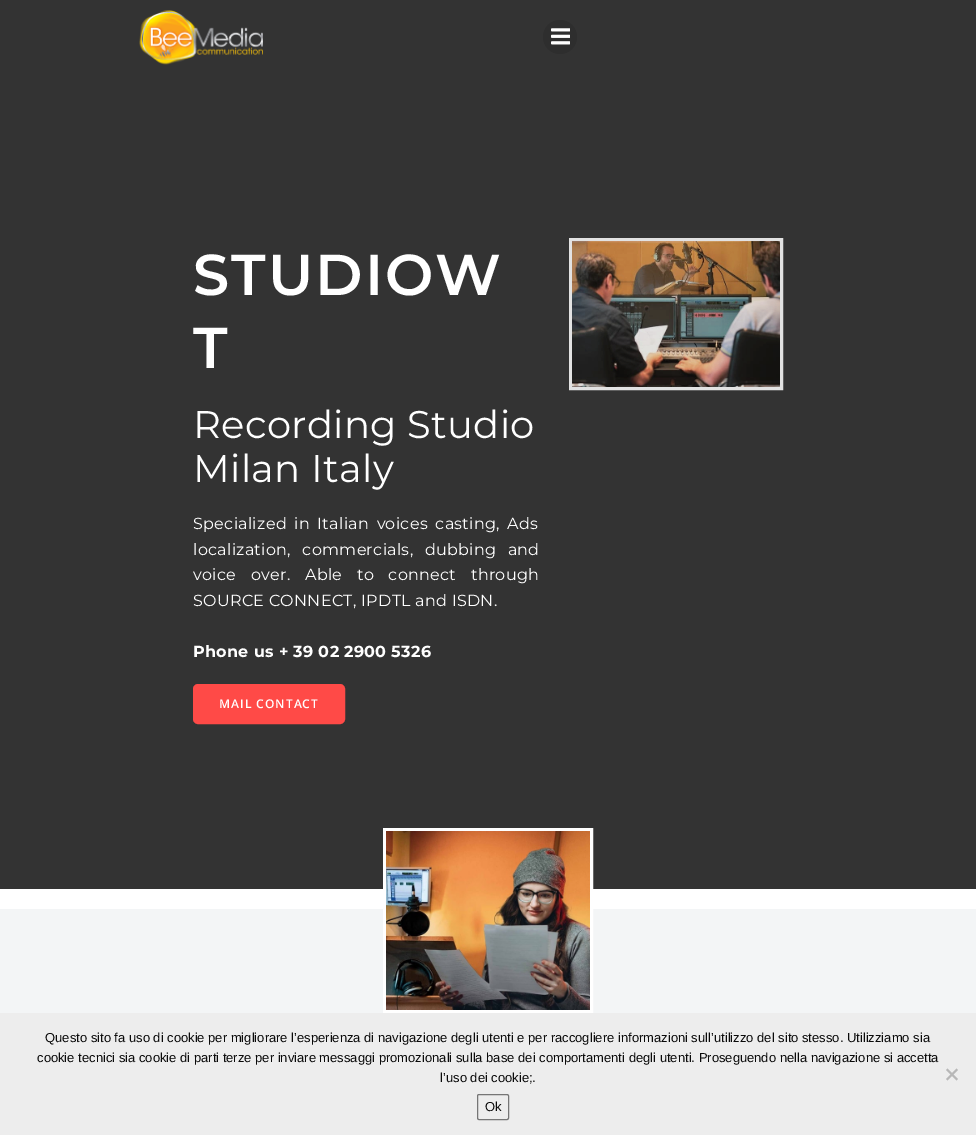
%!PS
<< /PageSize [976 1135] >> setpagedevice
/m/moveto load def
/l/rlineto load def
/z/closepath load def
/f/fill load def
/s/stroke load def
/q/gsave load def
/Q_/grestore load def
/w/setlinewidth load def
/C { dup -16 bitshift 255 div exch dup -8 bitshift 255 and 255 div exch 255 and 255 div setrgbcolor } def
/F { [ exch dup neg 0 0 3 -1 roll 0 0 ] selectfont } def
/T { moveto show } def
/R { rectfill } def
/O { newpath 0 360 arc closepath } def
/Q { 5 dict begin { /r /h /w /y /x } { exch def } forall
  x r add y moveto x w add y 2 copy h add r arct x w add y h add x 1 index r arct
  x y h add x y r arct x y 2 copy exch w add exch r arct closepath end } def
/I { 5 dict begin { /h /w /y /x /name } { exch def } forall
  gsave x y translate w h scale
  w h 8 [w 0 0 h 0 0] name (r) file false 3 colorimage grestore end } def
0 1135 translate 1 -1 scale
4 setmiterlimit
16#FFFFFF C
0 0 976 1135 R
16#333333 C
0 0 976 889 R
(1.rgb) 139 10 124 55 I
16#2E2E2E C
560 37 17 O f
(2.rgb) 551 28 19 17 I
/Montserrat-SemiBold 57.5 F
16#FFFFFF C
193 295 m 2 0 (STUDIOW) ashow
193 368 m 2 0 (T) ashow
/Montserrat-Regular 38.5 F
193 438 m .3 0 (Recording Studio) ashow
193 482 m .3 0 (Milan Italy) ashow
/Montserrat-Regular 16 F
193 529 m 3 0 32 .3 0 (Specialized in Italian voices casting, Ads) awidthshow
193 555 m 7 0 32 .3 0 (localization, commercials, dubbing and) awidthshow
193 580 m 10 0 32 .3 0 (voice over. Able to connect through) awidthshow
193 606 m .3 0 (SOURCE CONNECT, IPDTL and ISDN.) ashow
/Montserrat-Bold 16 F
193 657 m .3 0 (Phone us + 39 02 2900 5326) ashow
16#FF4A47 C
194 685 150 38 4 Q q f Q_
2 w
s
/OpenSans-SemiBold 12 F
16#FFFFFF C
219 708 m 1 0 (MAIL CONTACT) ashow
16#E2E2E2 C
3 w
570.5 239.5 m 211 0 l 0 149 l -211 0 l z s
(3.rgb) 572 241 208 146 I
16#F3F5F6 C
0 909 976 104 R
16#FFFFFF C
384.5 829.5 207 182 rectstroke
(4.rgb) 386 831 204 179 I
16#EDEDED C
0 1013 976 122 R
/LiberationSans-Regular 13 F
16#0A0A0A C
(Questo sito fa uso di cookie per migliorare l’esperienza di navigazione degli utenti e per raccogliere informazioni sull’utilizzo del sito stesso. Utilizziamo sia) 45 1042 T
(cookie tecnici sia cookie di parti terze per inviare messaggi promozionali sulla base dei comportamenti degli utenti. Proseguendo nella navigazione si accetta) 37 1062 T
(l’uso dei cookie;.) 440 1082 T
16#B7B7B7 C
956.5 1068.5 m 1.5 1.5 l -10.5 10.5 l -1.5 -1.5 l z f
946 1070 m 1.5 -1.5 l 10.5 10.5 l -1.5 1.5 l z f
16#767676 C
1 w
477.5 1094.5 31 25 1.5 Q s
16#0A0A0A C
(Ok) 485 1111 T
showpage
